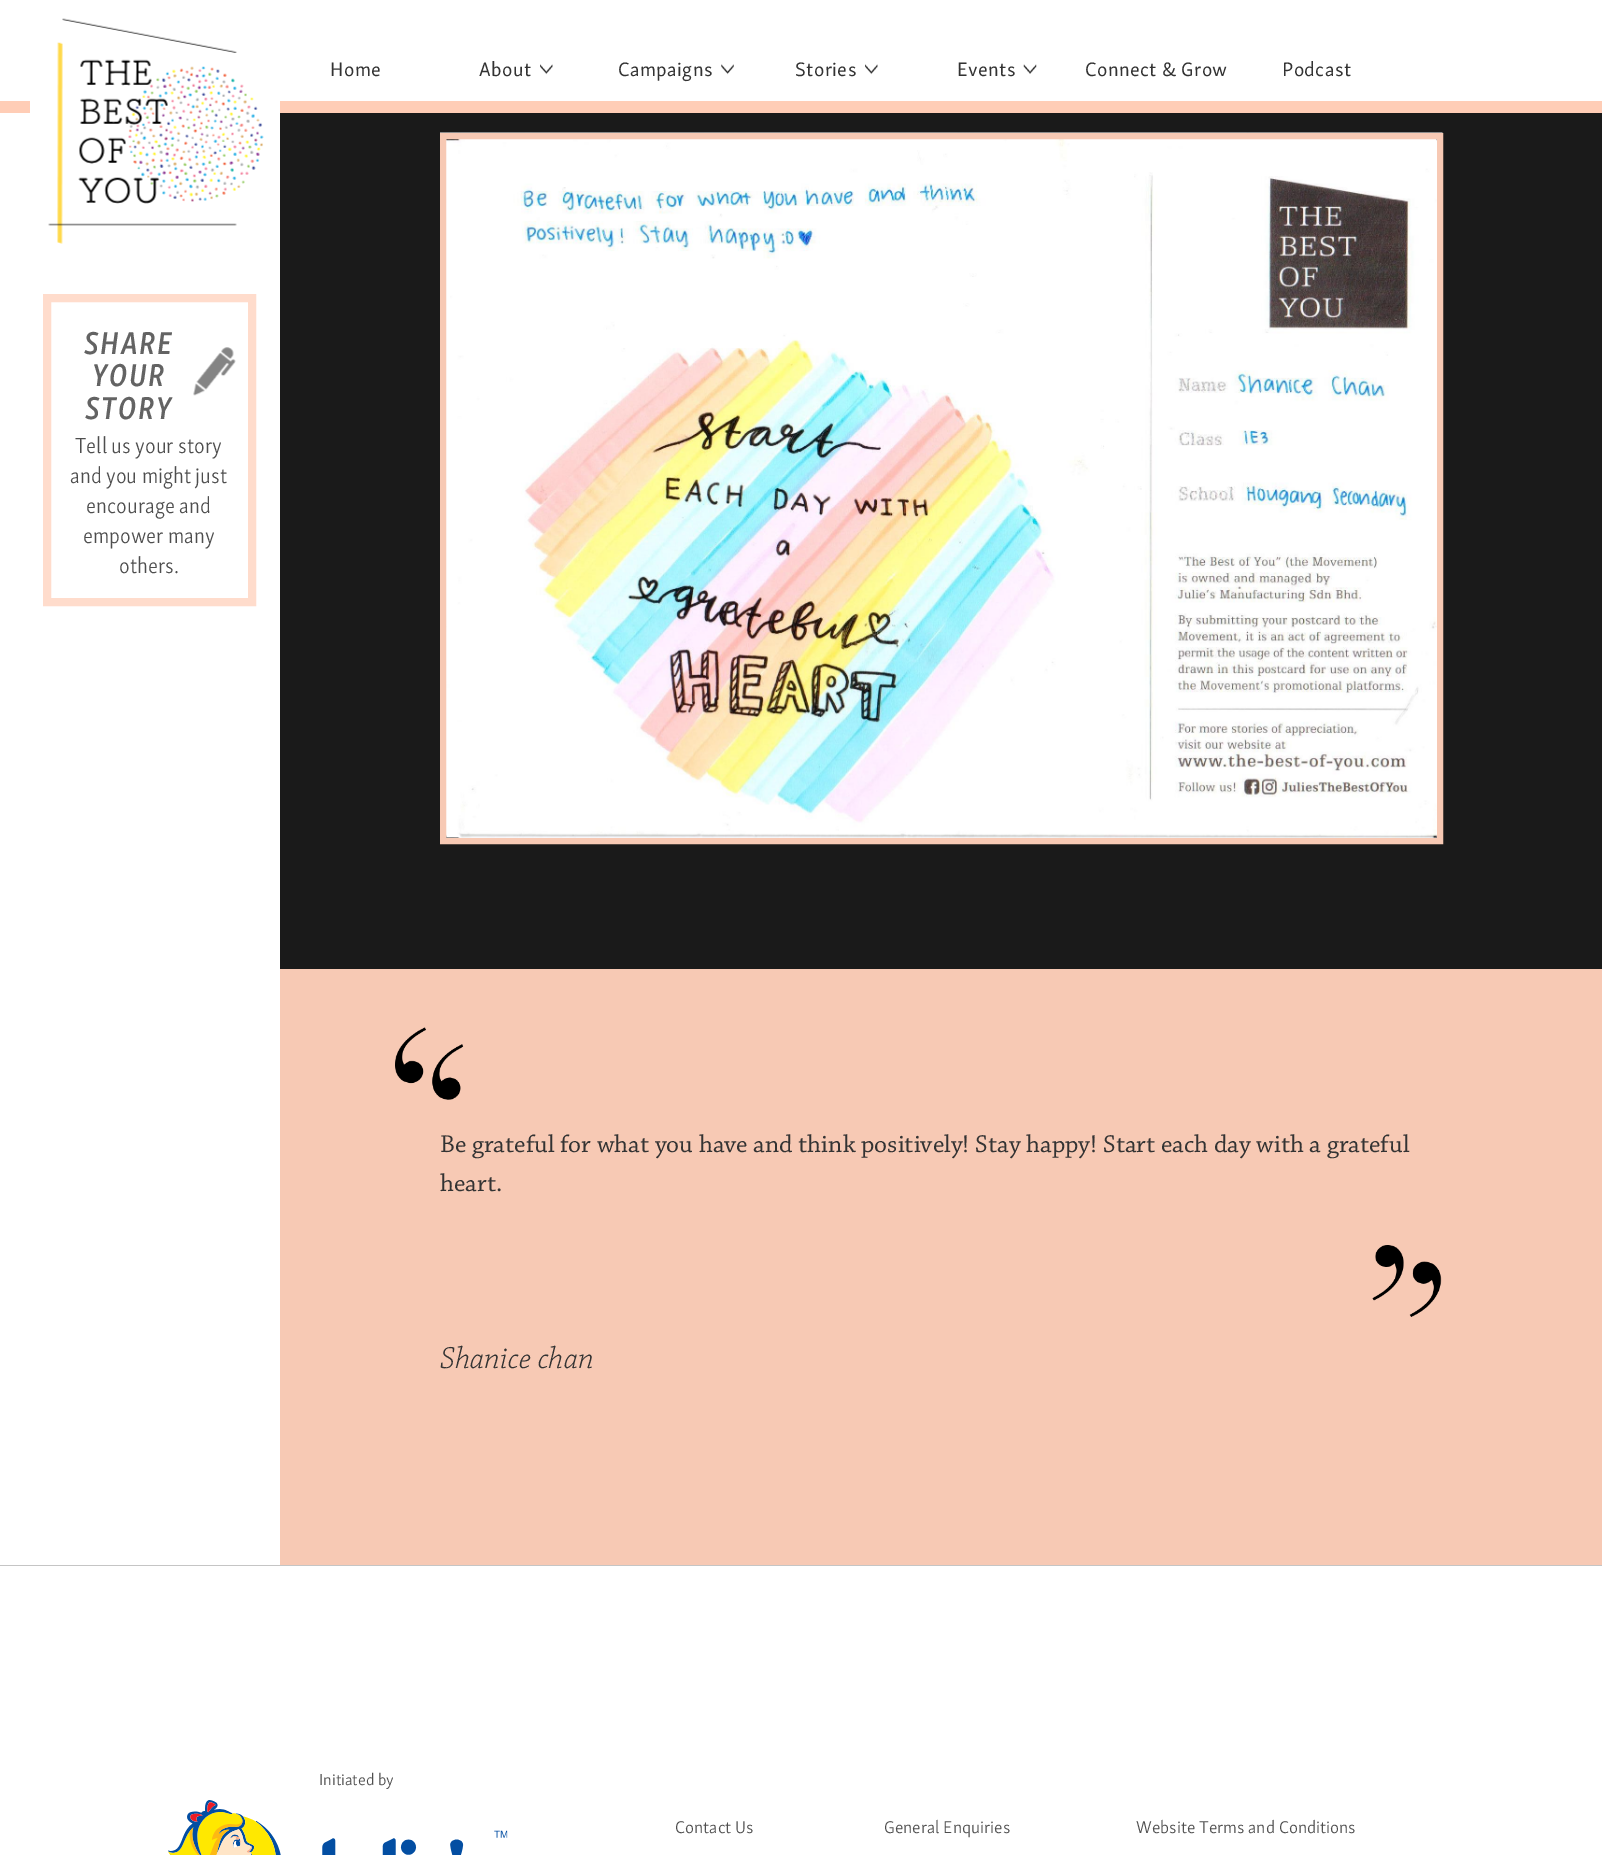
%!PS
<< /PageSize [1602 1855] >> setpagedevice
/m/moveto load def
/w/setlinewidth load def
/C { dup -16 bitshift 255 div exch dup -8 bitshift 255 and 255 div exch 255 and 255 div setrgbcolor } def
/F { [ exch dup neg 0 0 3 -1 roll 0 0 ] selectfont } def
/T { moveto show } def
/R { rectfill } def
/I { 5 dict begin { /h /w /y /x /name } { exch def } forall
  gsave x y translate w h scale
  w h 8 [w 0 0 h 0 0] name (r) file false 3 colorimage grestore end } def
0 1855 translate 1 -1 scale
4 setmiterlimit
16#FFFFFF C
0 0 1602 1855 R
/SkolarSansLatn-Regular 20 F
16#333333 C
330 76 m .4 0 (Home) ashow
479 76 m .4 0 (About) ashow
(1.rgb) 540 64 13 11 I
618 76 m .4 0 (Campaigns) ashow
(2.rgb) 721 64 13 11 I
795 76 m .4 0 (Stories) ashow
(3.rgb) 865 64 13 11 I
957 76 m .4 0 (Events) ashow
(4.rgb) 1023 64 14 10 I
1085 76 m .4 0 (Connect & Grow) ashow
1282 76 m .4 0 (Podcast) ashow
16#FFCDB6 C
0 101 30 12 R
280 101 1322 12 R
(5.rgb) 48 18 216 226 I
16#FFDCCC C
8 w
47 298 205 304 rectstroke
/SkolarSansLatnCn-SemiBoldItalic 32.5 F
16#636363 C
84 354 m 1.5 0 (SHARE) ashow
92 386 m 1.5 0 (YOUR) ashow
85 419 m 1.5 0 (STORY) ashow
(6.rgb) 193 347 43 49 I
/SkolarSansLatnCn-Light 22.5 F
16#4E4E4E C
(Tell us your story) 75 453 T
(and you might just) 70 483 T
(encourage and) 86 513 T
(empower many) 83 543 T
(others.) 119 573 T
16#1A1A1A C
280 113 1322 856 R
(7.rgb) 440 132 1003 706 I
16#F7C9B4 C
6 w
443 136 997 705 rectstroke
280 969 1322 596 R
(8.rgb) 395 1027 69 73 I
/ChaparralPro-Regular 25.65 F
16#333333 C
(Be grateful for what you have and think positively! Stay happy! Start each day with a grateful) 440 1152 T
(heart.) 440 1191 T
(9.rgb) 1372 1245 70 72 I
/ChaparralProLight-LightItalic 32 F
(Shanice chan) 440 1368 T
16#C5C5C5 C
0 1565 1602 1 R
/SkolarSansLatn-Light 16.25 F
16#4E4E4E C
(Initiated by) 319 1785 T
(10.rgb) 168 1800 340 55 I
/SkolarSansLatn-Light 17.5 F
(Contact Us) 675 1833 T
(General Enquiries) 884 1833 T
(Website Terms and Conditions) 1136 1833 T
showpage
